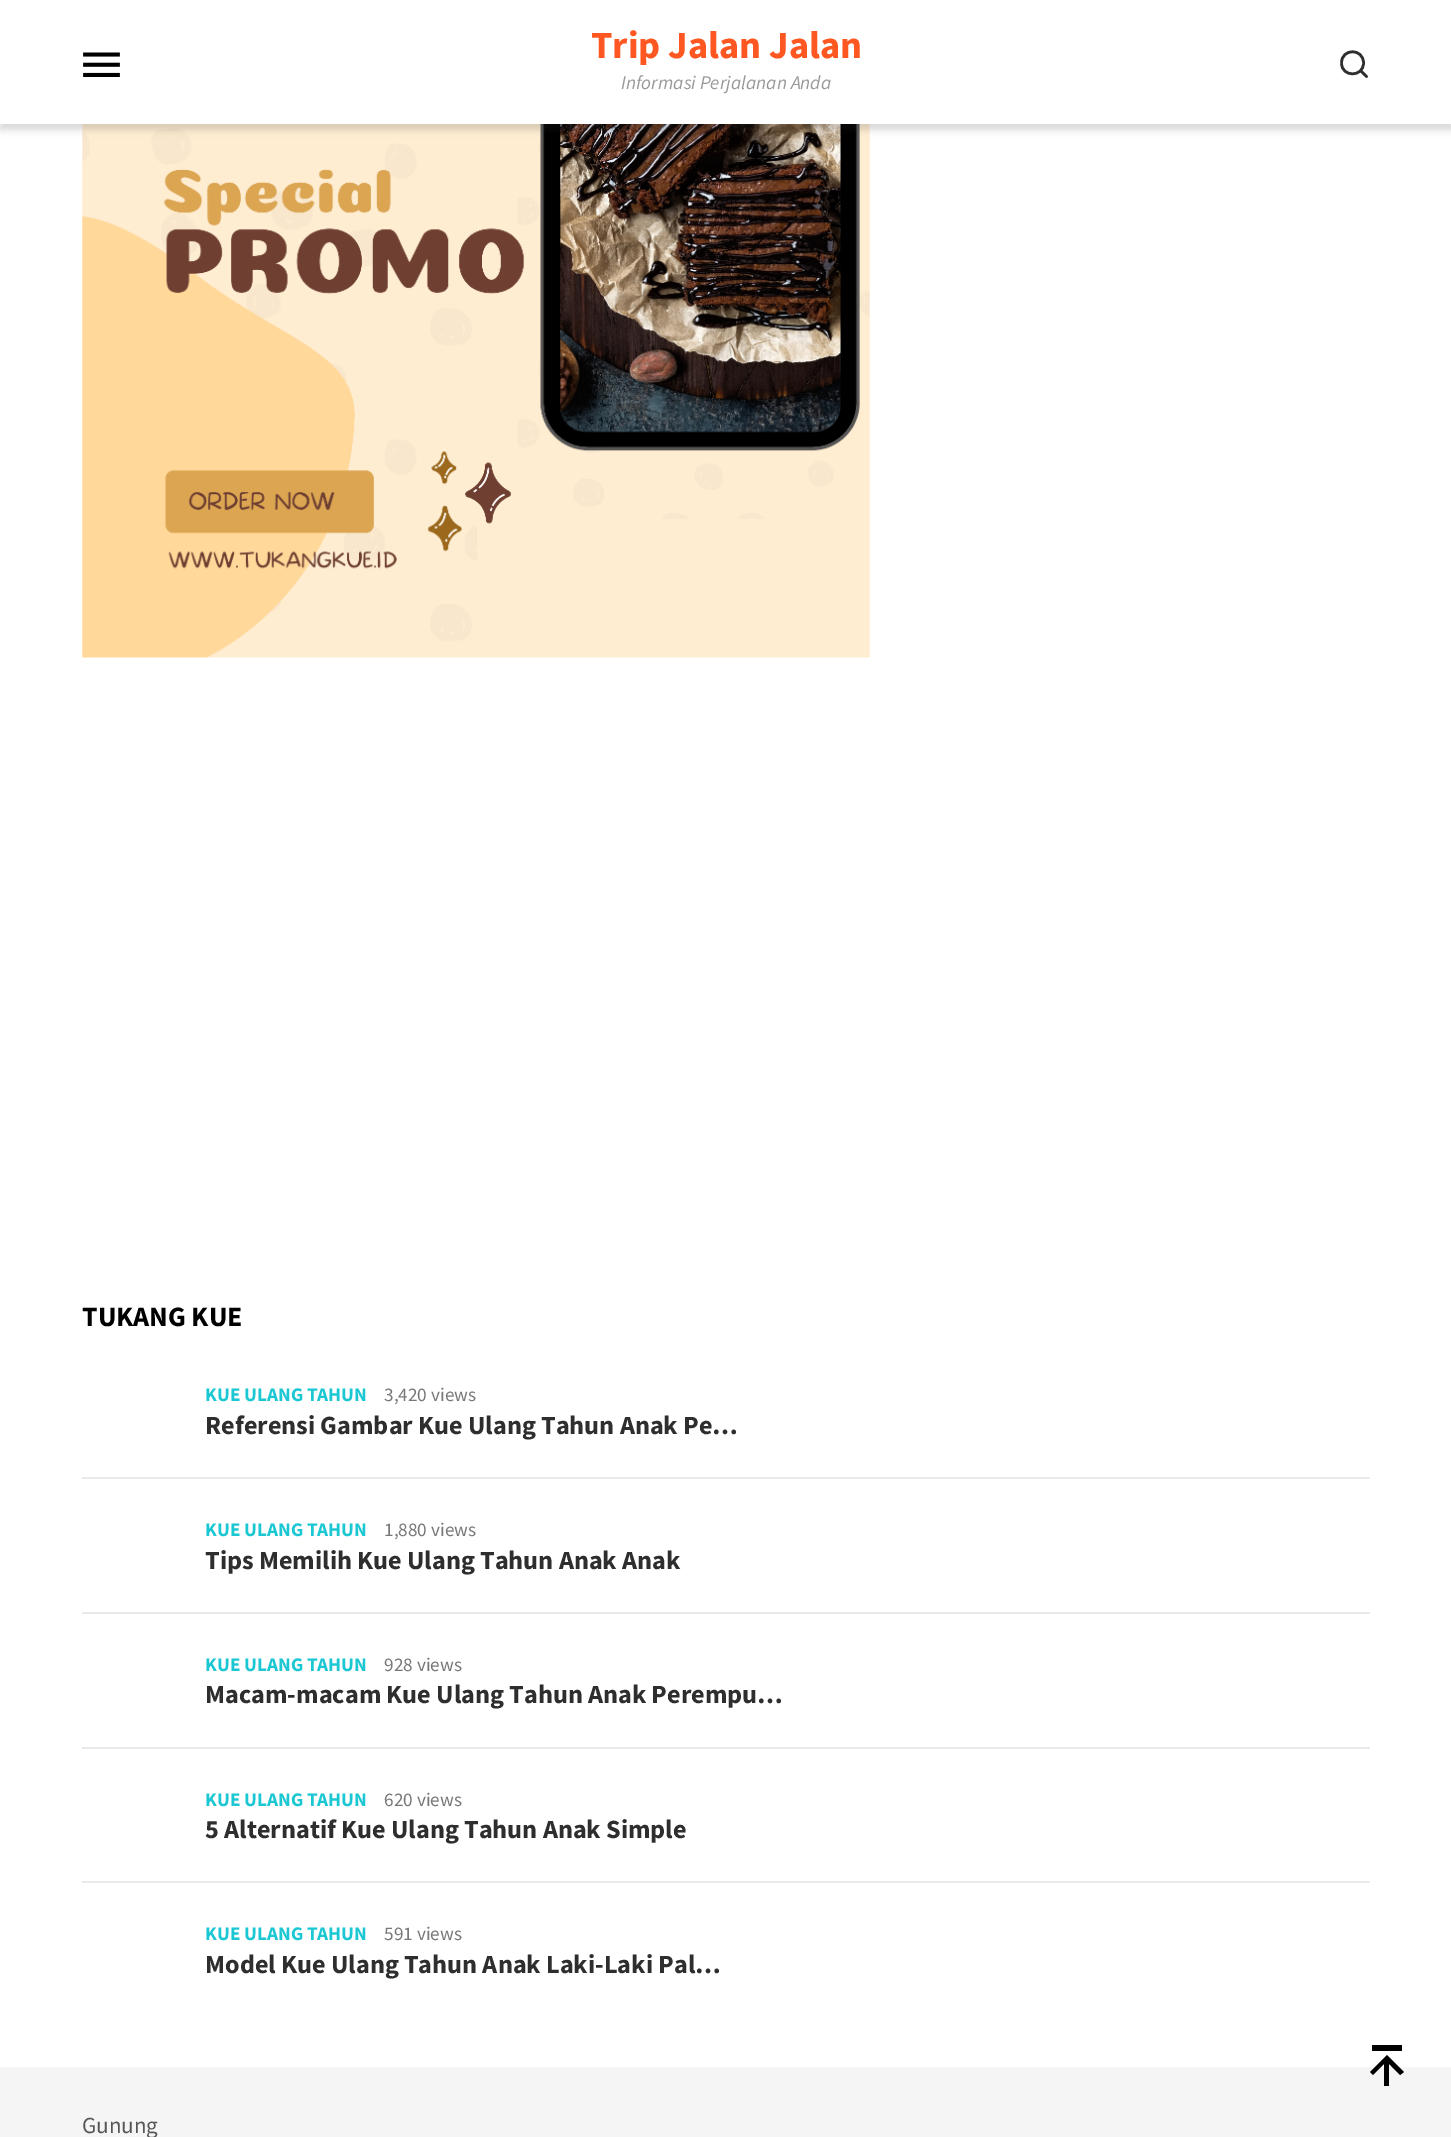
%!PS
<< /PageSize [1451 2137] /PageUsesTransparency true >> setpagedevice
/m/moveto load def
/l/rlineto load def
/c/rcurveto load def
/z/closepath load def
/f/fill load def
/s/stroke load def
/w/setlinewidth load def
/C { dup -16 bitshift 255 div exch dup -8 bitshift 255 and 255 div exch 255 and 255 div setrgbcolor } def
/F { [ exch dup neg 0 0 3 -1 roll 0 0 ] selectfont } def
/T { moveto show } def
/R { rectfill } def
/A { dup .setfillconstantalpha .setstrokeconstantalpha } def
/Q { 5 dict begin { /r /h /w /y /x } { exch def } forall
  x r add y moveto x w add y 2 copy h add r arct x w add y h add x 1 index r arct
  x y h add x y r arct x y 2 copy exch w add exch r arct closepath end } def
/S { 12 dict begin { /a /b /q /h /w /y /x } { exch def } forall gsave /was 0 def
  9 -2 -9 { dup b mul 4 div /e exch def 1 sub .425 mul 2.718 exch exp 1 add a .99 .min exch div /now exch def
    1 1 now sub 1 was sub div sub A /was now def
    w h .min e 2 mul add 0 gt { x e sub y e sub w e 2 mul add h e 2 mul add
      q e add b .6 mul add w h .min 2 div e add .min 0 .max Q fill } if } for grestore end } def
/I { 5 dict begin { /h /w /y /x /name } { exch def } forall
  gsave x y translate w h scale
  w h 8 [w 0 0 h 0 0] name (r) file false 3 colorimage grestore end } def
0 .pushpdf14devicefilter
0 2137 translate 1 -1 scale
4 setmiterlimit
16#F5F5F5 C
0 0 1451 2137 R
16#FFFFFF C
0 124 1451 1943 R
(2.rgb) 82 124 788 534 I
16#343434 C
0 5 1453 125 0 3.5 .18 S
16#FFFFFF C
0 0 1451 124 R
(1.rgb) 83 52 37 25 I
/SourceSansPro-Bold 38.5 F
16#FF5722 C
(Trip Jalan Jalan) 591 58 T
/SourceSansPro-Italic 19.25 F
16#999999 C
(Informasi Perjalanan Anda) 621 89 T
16#2E2E2E C
2.6 w
1 setlinecap
1366.5 76.5 m -6 -6 l 1363.5 63 m 0 14.5 -22 14.5 -22 0 c 0 -15 22 -15 22 0 c z s
/SourceSansPro-Bold 28 F
16#000000 C
(TUKANG KUE) 82 1326 T
16#E9E9E9 C
82 1477 1288 2 R
/SourceSansPro-Bold 19.25 F
16#1BC7D3 C
(KUE ULANG TAHUN) 205 1401 T
/SourceSansPro-Regular 19.25 F
16#787878 C
(3,420 views) 384 1401 T
/SourceSansPro-Bold 26.25 F
16#2E2E2E C
(Referensi Gambar Kue Ulang Tahun Anak Pe…) 205 1434 T
16#E9E9E9 C
82 1612 1288 2 R
/SourceSansPro-Bold 19.25 F
16#1BC7D3 C
(KUE ULANG TAHUN) 205 1536 T
/SourceSansPro-Regular 19.25 F
16#787878 C
(1,880 views) 384 1536 T
/SourceSansPro-Bold 26.25 F
16#2E2E2E C
(Tips Memilih Kue Ulang Tahun Anak Anak) 205 1569 T
16#E9E9E9 C
82 1747 1288 2 R
/SourceSansPro-Bold 19.25 F
16#1BC7D3 C
(KUE ULANG TAHUN) 205 1671 T
/SourceSansPro-Regular 19.25 F
16#787878 C
(928 views) 384 1671 T
/SourceSansPro-Bold 26.25 F
16#2E2E2E C
(Macam-macam Kue Ulang Tahun Anak Perempu…) 205 1703 T
16#E9E9E9 C
82 1881 1288 2 R
/SourceSansPro-Bold 19.25 F
16#1BC7D3 C
(KUE ULANG TAHUN) 205 1806 T
/SourceSansPro-Regular 19.25 F
16#787878 C
(620 views) 384 1806 T
/SourceSansPro-Bold 26.25 F
16#2E2E2E C
(5 Alternatif Kue Ulang Tahun Anak Simple) 205 1838 T
/SourceSansPro-Bold 19.25 F
16#1BC7D3 C
(KUE ULANG TAHUN) 205 1940 T
/SourceSansPro-Regular 19.25 F
16#787878 C
(591 views) 384 1940 T
/SourceSansPro-Bold 26.25 F
16#2E2E2E C
(Model Kue Ulang Tahun Anak Laki-Laki Pal…) 205 1973 T
/SourceSansPro-Regular 23 F
16#565656 C
(Gunung) 82 2133 T
16#000000 C
1372 2045 m 30 0 l 0 6 l -30 0 l z 1373 2075 m 11 -11 l 0 22 l 5 0 l 0 -22 l 11 11 l 4 -3 l -17 -17 l -17 17 l z f
.poppdf14devicefilter showpage
